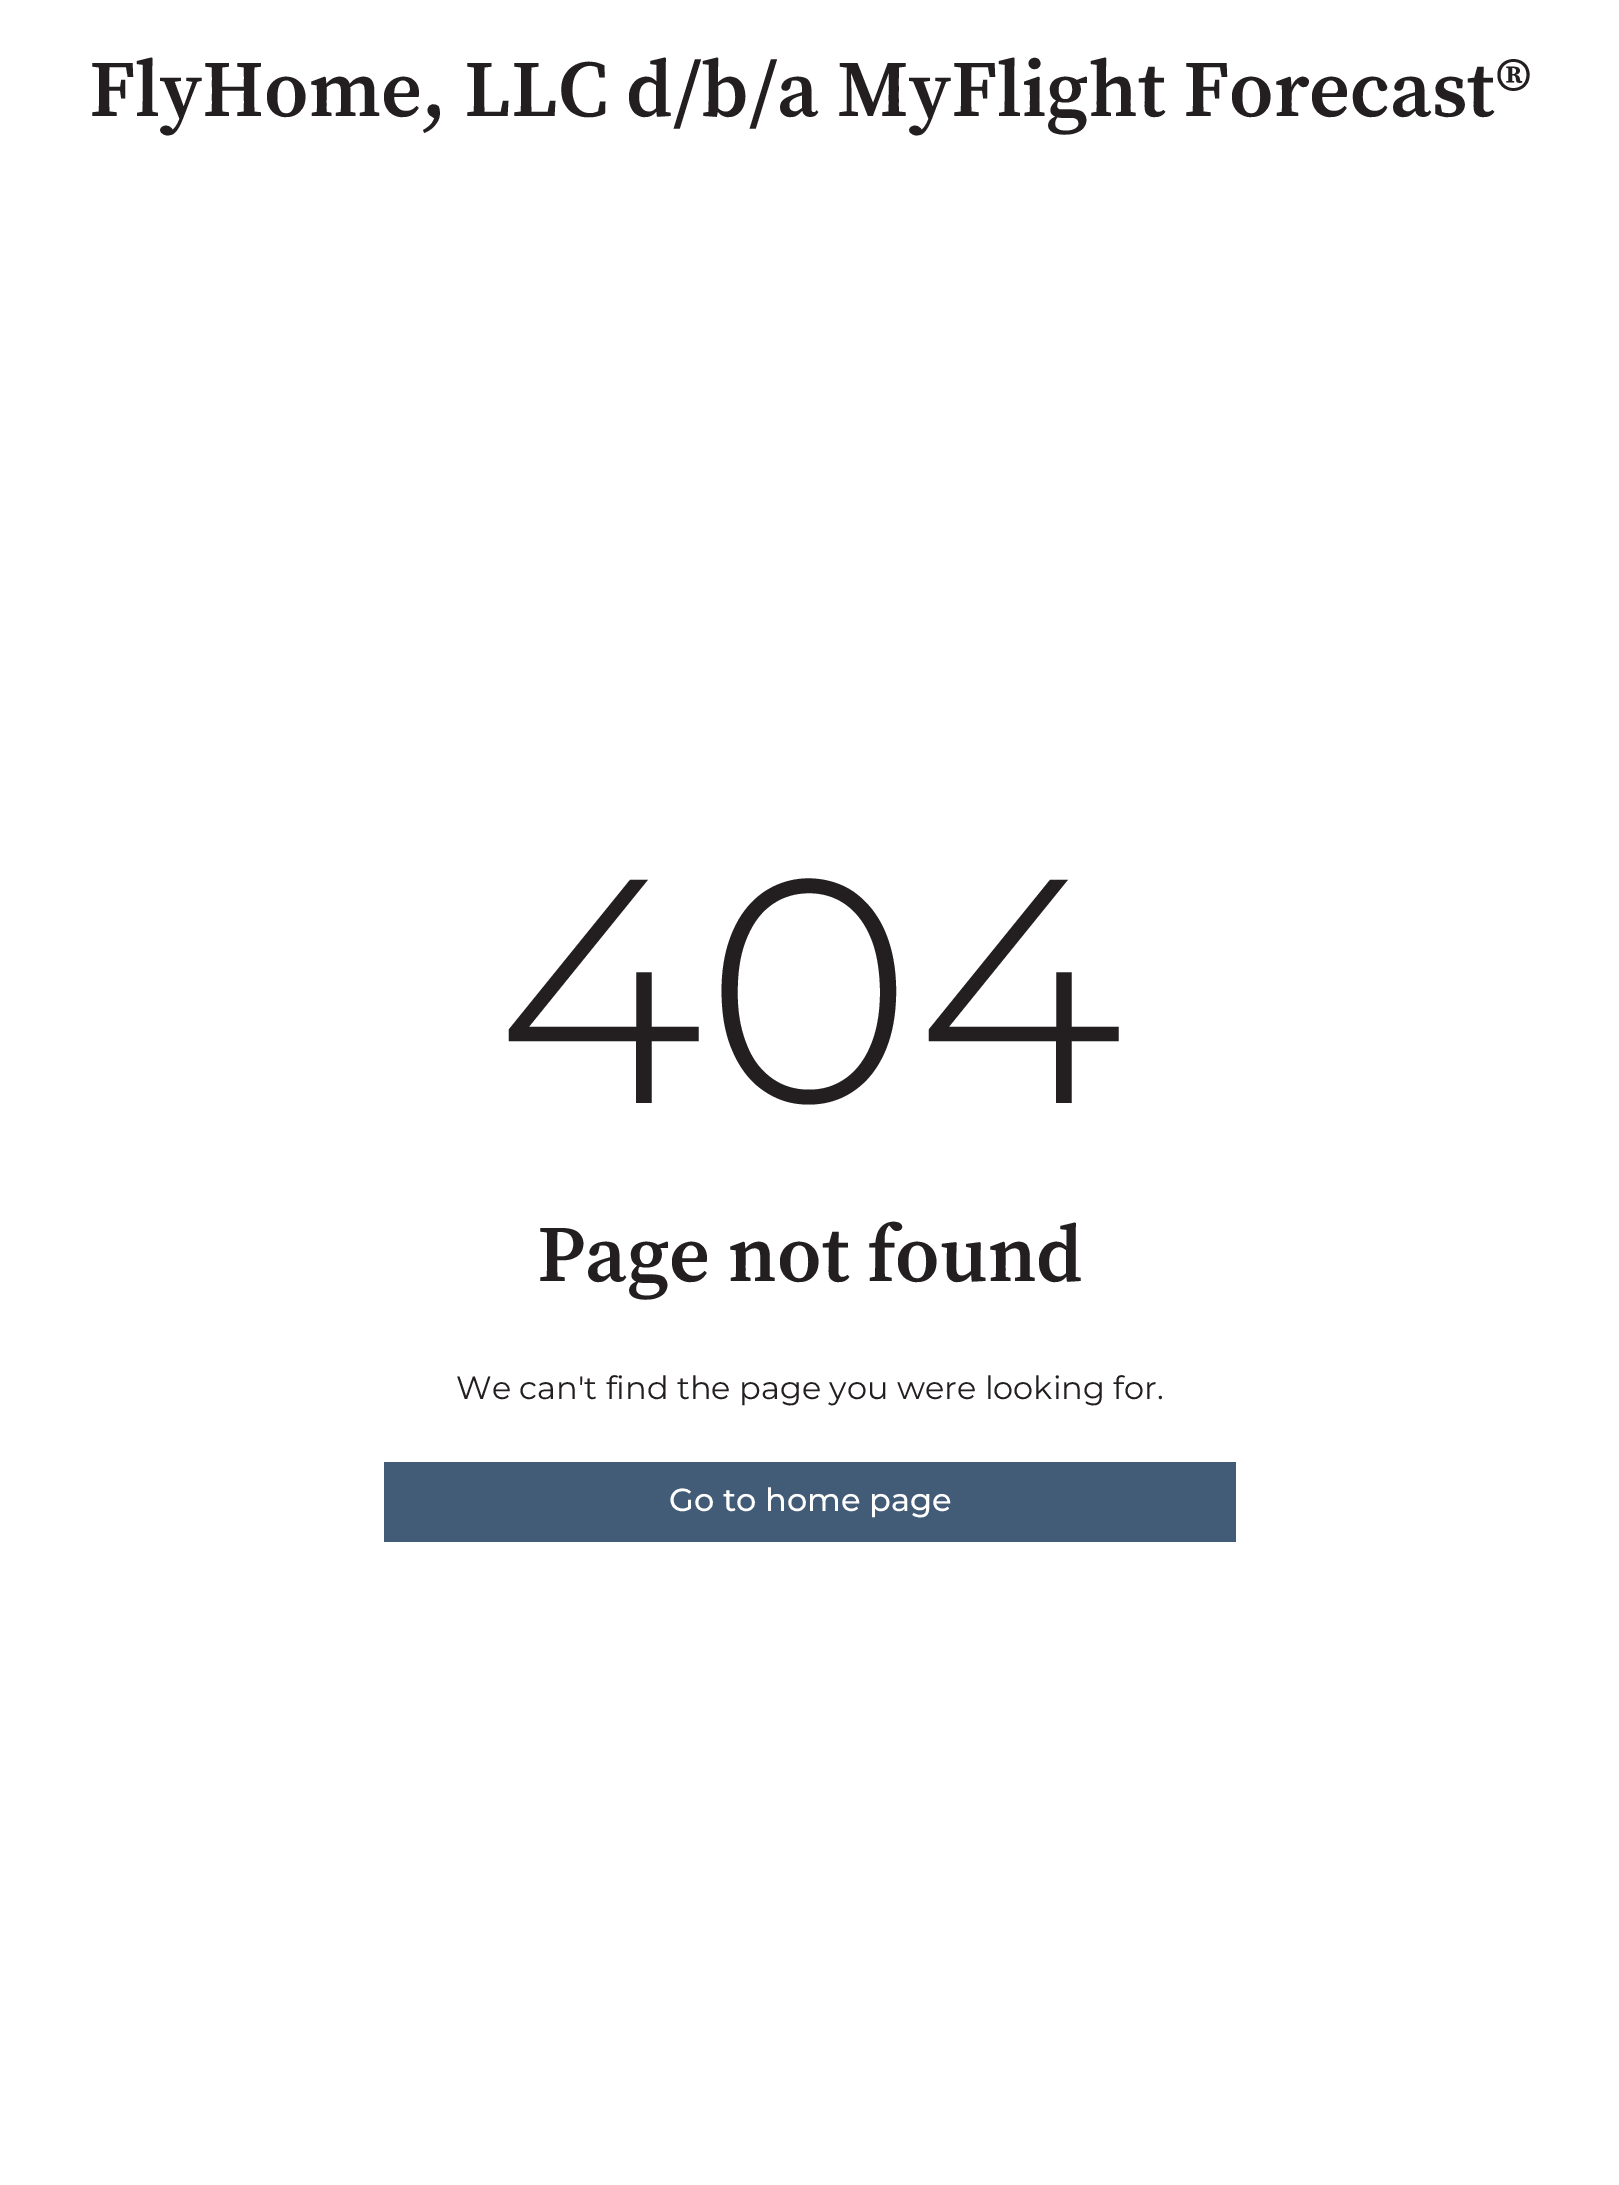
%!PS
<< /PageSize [1619 2185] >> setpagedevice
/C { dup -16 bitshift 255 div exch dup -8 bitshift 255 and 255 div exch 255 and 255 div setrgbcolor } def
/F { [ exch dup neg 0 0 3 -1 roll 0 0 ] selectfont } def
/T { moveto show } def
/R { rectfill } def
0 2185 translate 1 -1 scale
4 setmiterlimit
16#FFFFFF C
0 0 1619 2185 R
/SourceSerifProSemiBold-SemiBold 80 F
16#231F20 C
(FlyHome, LLC d/b/a MyFlight Forecast®) 89 116 T
/Montserrat-Light 320 F
(404) 495 1103 T
/SourceSerifProSemiBold-SemiBold 80 F
(Page not found) 537 1281 T
/Montserrat-Regular 32 F
(We can't find the page you were looking for.) 456 1399 T
16#425B76 C
384 1462 852 80 R
/Montserrat-Medium 32 F
16#FFFFFF C
(Go to home page) 669 1511 T
showpage
